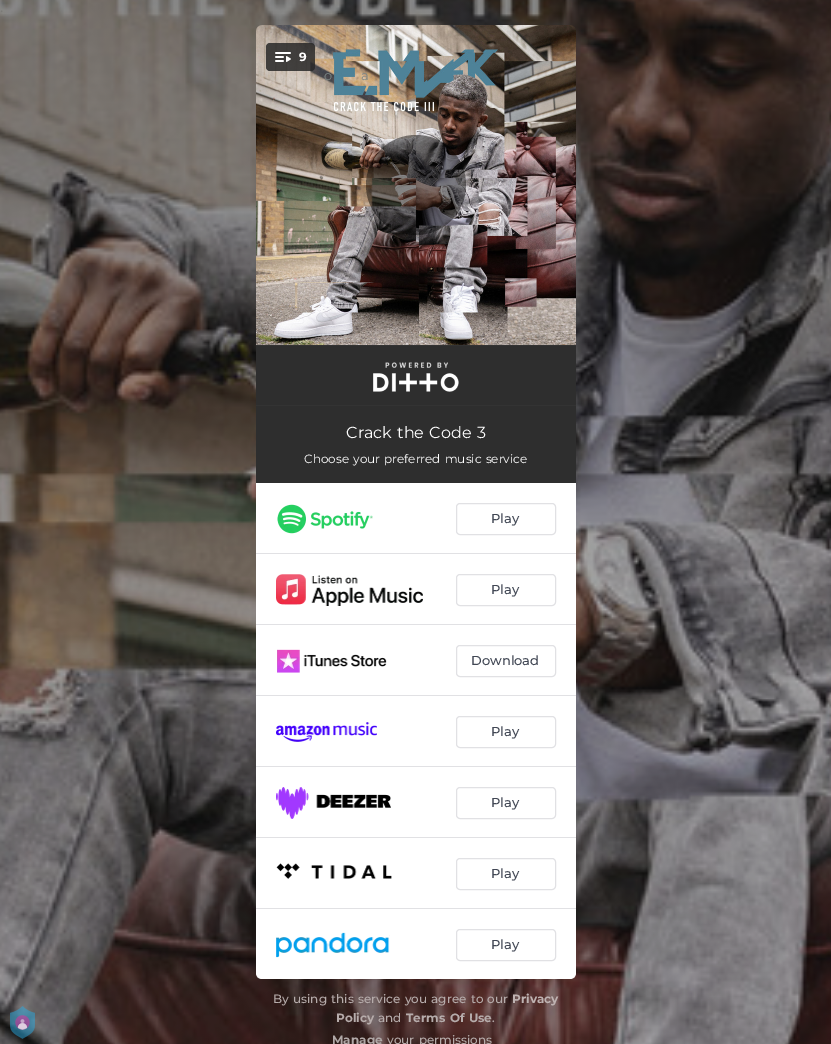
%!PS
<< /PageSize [831 1044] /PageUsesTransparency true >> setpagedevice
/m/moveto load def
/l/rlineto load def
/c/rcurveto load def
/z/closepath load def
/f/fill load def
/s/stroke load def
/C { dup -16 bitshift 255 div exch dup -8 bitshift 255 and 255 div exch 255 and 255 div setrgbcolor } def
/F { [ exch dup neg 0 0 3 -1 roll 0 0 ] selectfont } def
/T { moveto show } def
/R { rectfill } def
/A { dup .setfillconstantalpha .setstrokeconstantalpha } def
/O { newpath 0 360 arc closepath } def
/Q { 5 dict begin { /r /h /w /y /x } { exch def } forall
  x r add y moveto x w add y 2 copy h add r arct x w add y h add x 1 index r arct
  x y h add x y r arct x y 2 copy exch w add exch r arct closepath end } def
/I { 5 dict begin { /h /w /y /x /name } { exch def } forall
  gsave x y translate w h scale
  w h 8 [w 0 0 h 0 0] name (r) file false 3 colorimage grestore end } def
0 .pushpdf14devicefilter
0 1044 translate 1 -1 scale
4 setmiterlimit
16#FFFFFF C
0 0 831 1044 R
(2.rgb) 0 0 831 1044 I
(1.rgb) 10 1006 25 33 I
(3.rgb) 256 25 320 320 I
0.85 A
16#282828 C
266 43 49 28 4 Q f
1 A
(4.rgb) 275 52 16 10 I
/Montserrat-Bold 12 F
16#FFFFFF C
(9) 299 61 T
0.45 A
16#000000 C
416 185 50 O f
/Montserrat-Regular 13 F
1 A
16#7B8685 C
324 80 m 1 0 32 (o) widthshow
361 80 m 1 0 32 (a) widthshow
16#2E2E2E C
256 346 320 59 R
16#333333 C
256 345 320 1 R
256 405 320 1 R
(5.rgb) 373 362 86 30 I
16#2E2E2E C
256 406 320 77 R
/Montserrat-Regular 16 F
16#FFFFFF C
346 438 m 1 0 32 (Crack the Code 3) widthshow
/Montserrat-Regular 12 F
304 463 m 1 0 32 (Choose your preferred music service) widthshow
256 483 m 320 0 l 0 490 l 0 3.5 -2.5 6 -6 6 c -308 0 l -3.5 0 -6 -2.5 -6 -6 c z f
16#E1E1E4 C
256 553 320 1 R
(6.rgb) 277 504 96 30 I
456.5 503.5 99 31 3.5 Q s
/Montserrat-Medium 13 F
16#414754 C
(Play) 491 523 T
16#E1E1E4 C
256 624 320 1 R
(7.rgb) 276 574 147 32 I
456.5 574.5 99 31 3.5 Q s
16#414754 C
(Play) 491 594 T
16#E1E1E4 C
256 695 320 1 R
(8.rgb) 277 649 110 24 I
456.5 645.5 99 31 3.5 Q s
16#414754 C
(Download) 471 665 T
16#E1E1E4 C
256 766 320 1 R
(9.rgb) 276 722 101 20 I
456.5 716.5 99 31 3.5 Q s
16#414754 C
(Play) 491 736 T
16#E1E1E4 C
256 837 320 1 R
(10.rgb) 276 787 115 32 I
456.5 787.5 99 31 3.5 Q s
16#414754 C
(Play) 491 807 T
16#E1E1E4 C
256 908 320 1 R
(11.rgb) 276 863 116 16 I
456.5 858.5 99 31 3.5 Q s
16#414754 C
(Play) 491 878 T
(12.rgb) 276 932 114 26 I
16#E1E1E4 C
456.5 929.5 99 31 3.5 Q s
16#414754 C
(Play) 491 949 T
/Montserrat-Medium 12 F
16#B6ACAB C
273 1003 m 1 0 32 (By using this service you agree to our) widthshow
/Montserrat-Bold 12 F
16#BFB3B2 C
(Privacy) 512 1003 T
16#B6ACAB C
(Policy) 336 1022 T
/Montserrat-Medium 12 F
(and) 378 1022 T
/Montserrat-Bold 12 F
406 1022 m 1 0 32 (Terms Of Use) widthshow
/Montserrat-Medium 12 F
(.) 492 1022 T
/Montserrat-Bold 12 F
16#B0A8A7 C
(Manage) 332 1044 T
/Montserrat-Medium 12 F
16#B6ACAB C
387 1044 m 1 0 32 (your permissions) widthshow
.poppdf14devicefilter showpage
